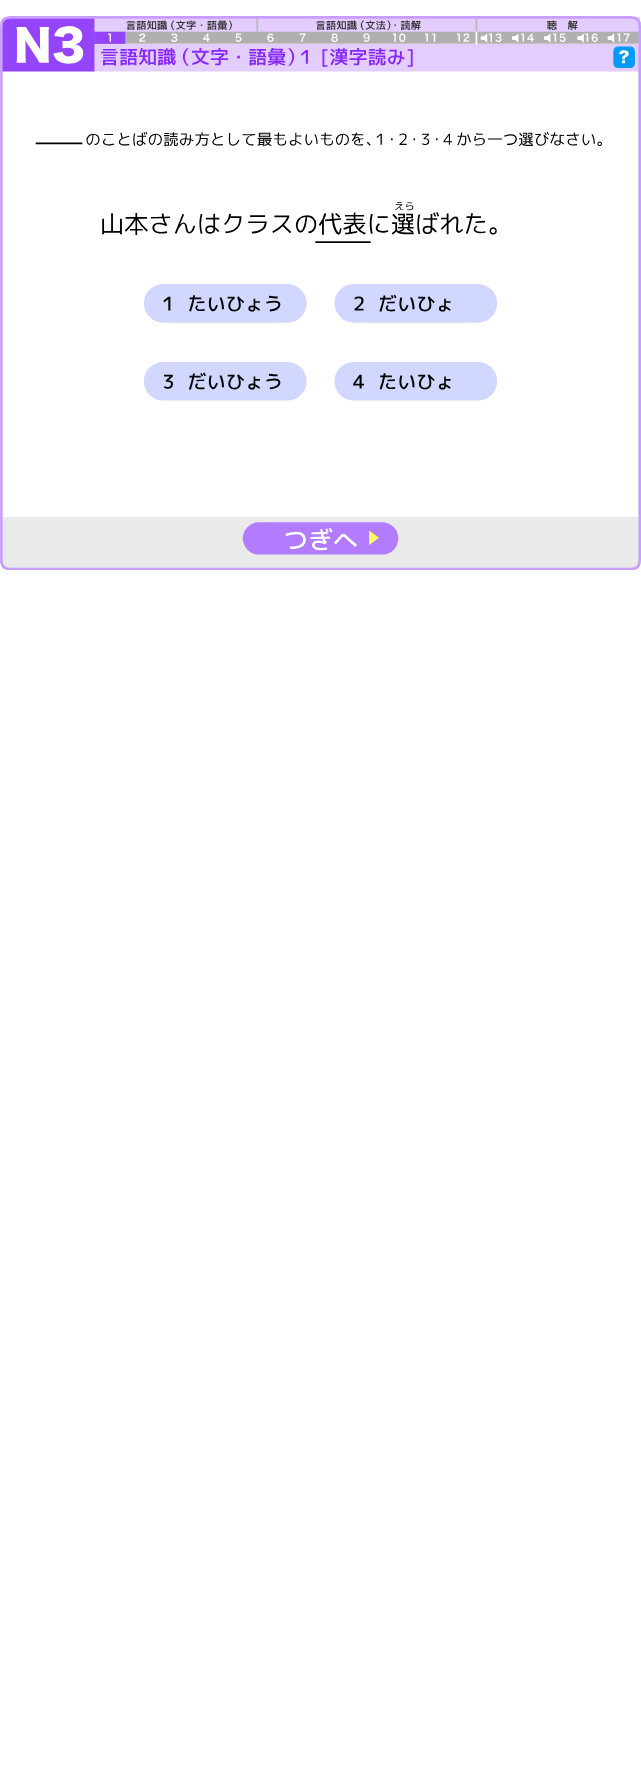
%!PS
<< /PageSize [641 1773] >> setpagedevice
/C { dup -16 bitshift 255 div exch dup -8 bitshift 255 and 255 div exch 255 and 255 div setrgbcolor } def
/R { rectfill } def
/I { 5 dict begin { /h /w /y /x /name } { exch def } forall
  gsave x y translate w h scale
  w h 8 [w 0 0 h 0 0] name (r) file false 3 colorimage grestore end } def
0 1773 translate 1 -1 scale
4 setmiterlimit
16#FFFFFF C
0 0 641 1773 R
(1.rgb) 0 16 641 554 I
showpage
